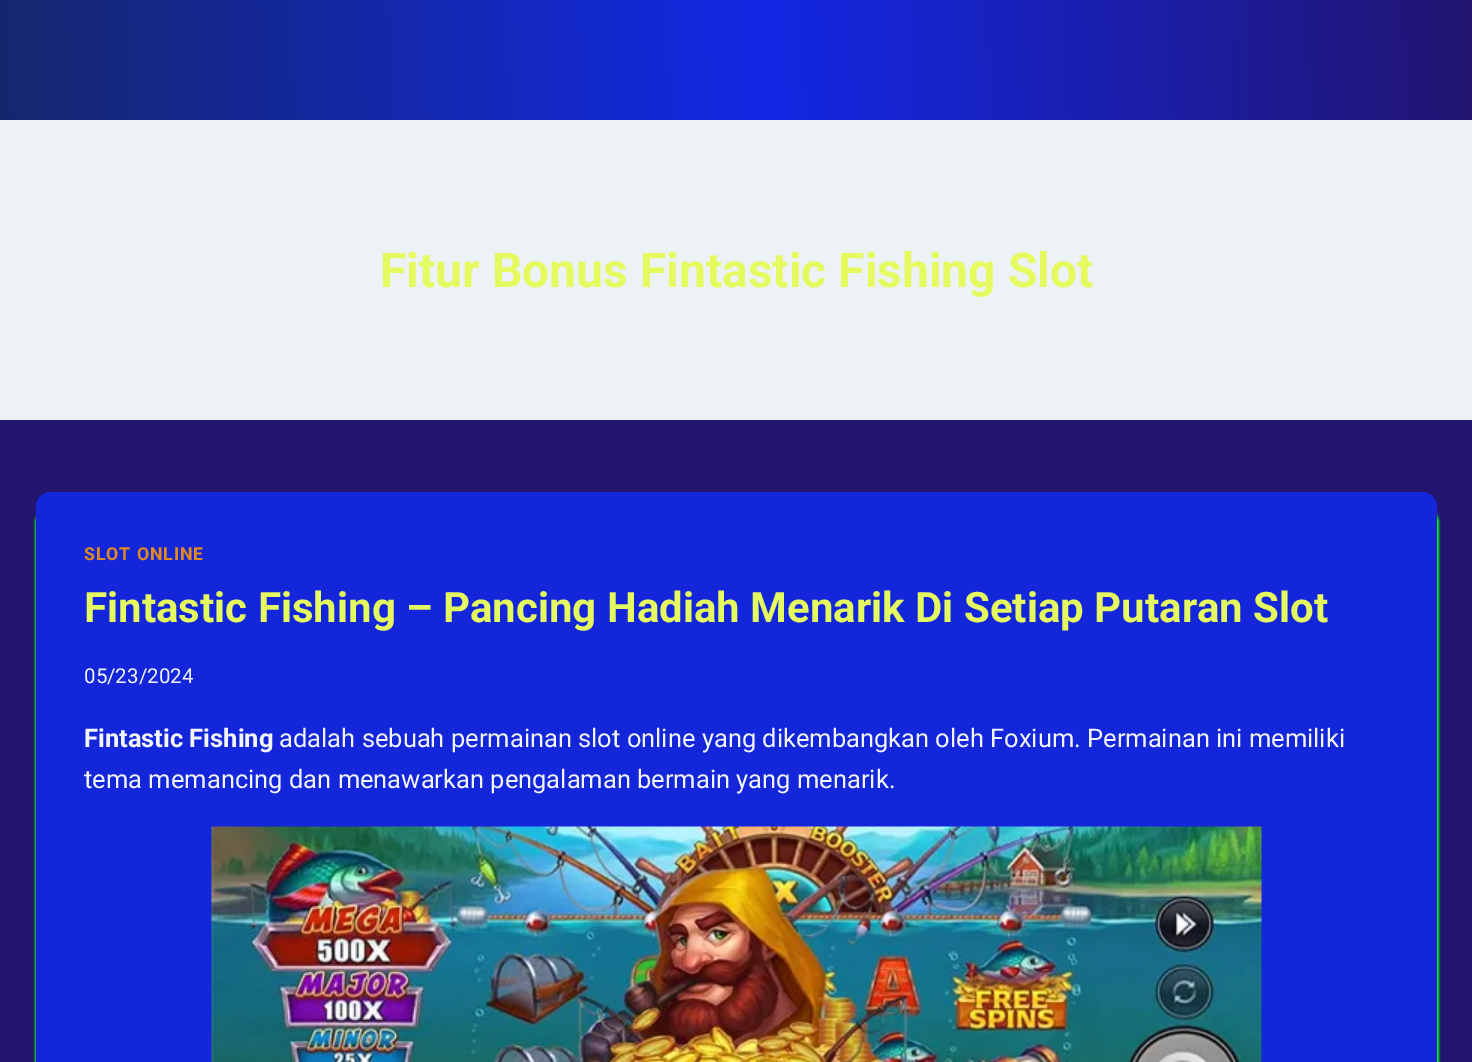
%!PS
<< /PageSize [1472 1062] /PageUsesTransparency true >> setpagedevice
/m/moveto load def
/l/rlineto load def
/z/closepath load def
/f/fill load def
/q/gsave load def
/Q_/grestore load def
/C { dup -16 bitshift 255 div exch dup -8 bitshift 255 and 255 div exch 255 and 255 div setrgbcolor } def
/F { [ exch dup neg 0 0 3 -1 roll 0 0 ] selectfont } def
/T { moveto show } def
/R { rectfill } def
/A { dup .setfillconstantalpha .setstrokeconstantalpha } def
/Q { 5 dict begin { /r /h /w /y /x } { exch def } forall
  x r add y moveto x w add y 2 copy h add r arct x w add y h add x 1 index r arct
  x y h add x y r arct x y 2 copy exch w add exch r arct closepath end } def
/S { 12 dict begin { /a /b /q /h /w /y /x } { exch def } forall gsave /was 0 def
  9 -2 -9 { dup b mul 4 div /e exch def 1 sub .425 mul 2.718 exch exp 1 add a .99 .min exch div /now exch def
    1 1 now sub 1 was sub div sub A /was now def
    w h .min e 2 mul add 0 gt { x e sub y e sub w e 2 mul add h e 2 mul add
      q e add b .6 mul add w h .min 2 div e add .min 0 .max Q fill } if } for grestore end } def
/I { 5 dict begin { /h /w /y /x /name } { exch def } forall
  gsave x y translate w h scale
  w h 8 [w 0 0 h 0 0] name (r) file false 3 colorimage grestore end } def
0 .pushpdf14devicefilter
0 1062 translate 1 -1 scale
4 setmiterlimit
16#221570 C
0 0 1472 1062 R
q 0 0 m 1464 0 l 0 120 l -1464 0 l z clip newpath
<< /ShadingType 2 /ColorSpace /DeviceRGB /Coords [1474 21 -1.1 99] /Extend [true true] /Function << /FunctionType 3 /Domain [0 1] /Functions [<< /FunctionType 2 /Domain [0 1] /C0 [.133 .082 .439] /C1 [.075 .157 .898] /N 1 >> << /FunctionType 2 /Domain [0 1] /C0 [.075 .157 .898] /C1 [.078 .153 .427] /N 1 >>] /Bounds [.48] /Encode [0 1 0 1] >> >> shfill Q_
16#EDF2F7 C
0 120 1472 300 R
/Roboto-Bold 48 F
16#E5FA5F C
(Fitur Bonus Fintastic Fishing Slot) 380 287 T
16#08FA08 C
35 506 1404 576 17 1 1 S
16#1426DA C
36 492 1401 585 15 Q f
/Roboto-Bold 17.75 F
16#E18A1F C
84 560 m .9 0 (SLOT ONLINE) ashow
/Roboto-Bold 42 F
16#E5FA5F C
(Fintastic Fishing – Pancing Hadiah Menarik Di Setiap Putaran Slot) 84 622 T
/Roboto-Regular 20.5 F
16#F2F5FA C
(05/23/2024) 84 683 T
/Roboto-Bold 25.5 F
(Fintastic Fishing) 84 747 T
/Roboto-Regular 25.5 F
(adalah sebuah permainan slot online yang dikembangkan oleh Foxium. Permainan ini memiliki) 279 747 T
(tema memancing dan menawarkan pengalaman bermain yang menarik.) 84 788 T
(1.rgb) 211 826 1051 236 I
.poppdf14devicefilter showpage
